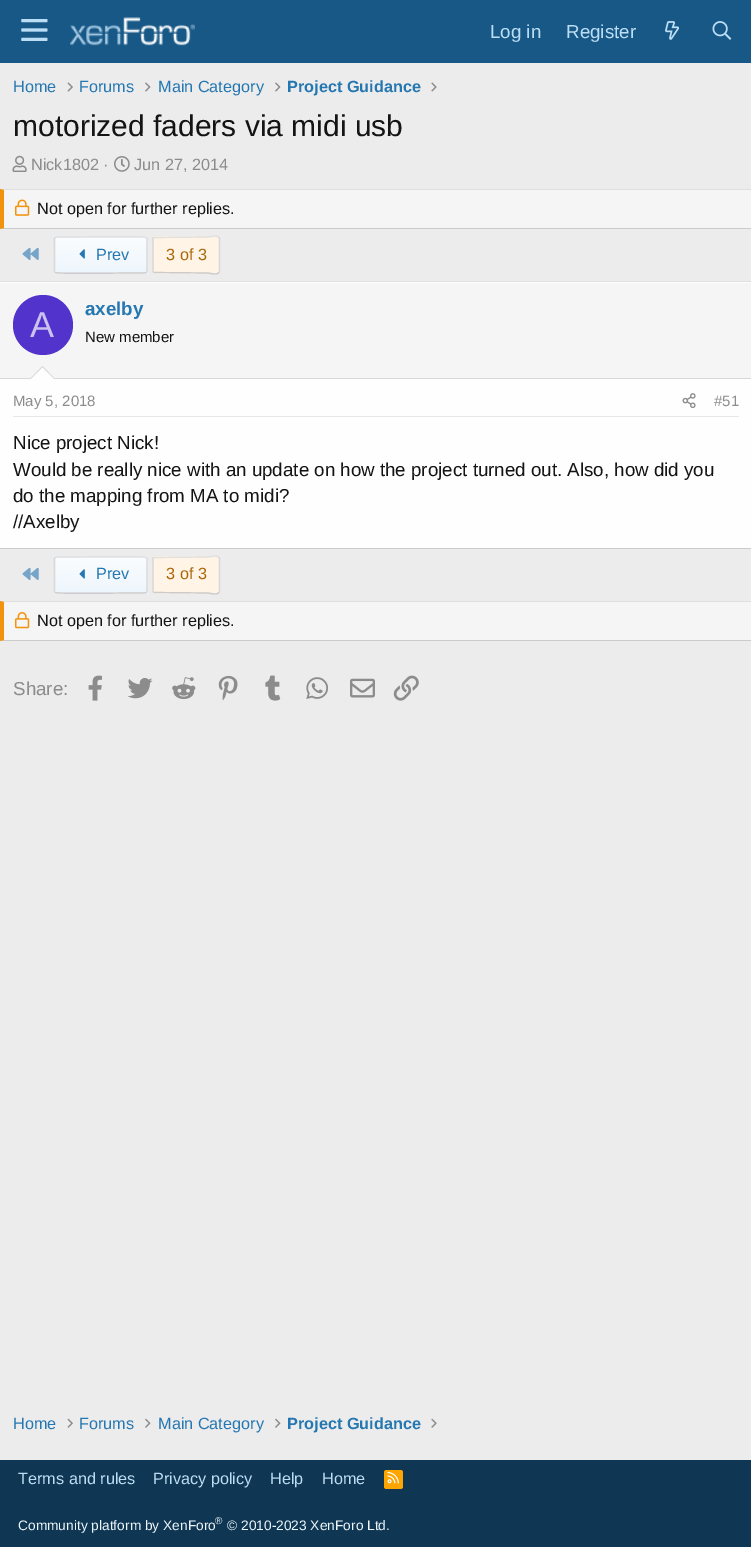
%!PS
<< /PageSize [751 1547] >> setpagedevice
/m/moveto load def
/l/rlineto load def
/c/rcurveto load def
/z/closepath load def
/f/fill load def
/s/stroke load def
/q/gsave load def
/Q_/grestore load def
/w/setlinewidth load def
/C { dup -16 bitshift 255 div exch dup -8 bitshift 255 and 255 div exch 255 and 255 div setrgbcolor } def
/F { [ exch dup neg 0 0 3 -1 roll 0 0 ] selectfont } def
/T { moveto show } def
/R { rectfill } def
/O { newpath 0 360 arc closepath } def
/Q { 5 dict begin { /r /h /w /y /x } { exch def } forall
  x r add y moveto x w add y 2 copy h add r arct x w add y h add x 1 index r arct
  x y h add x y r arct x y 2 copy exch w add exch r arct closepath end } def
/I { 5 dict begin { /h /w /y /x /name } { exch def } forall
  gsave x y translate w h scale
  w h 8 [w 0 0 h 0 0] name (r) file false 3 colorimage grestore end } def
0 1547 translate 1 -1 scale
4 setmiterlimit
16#ECECEC C
0 0 751 1547 R
16#185886 C
0 0 751 63 R
(1.rgb) 21 19 27 22 I
(2.rgb) 70 17 125 29 I
/LiberationSans-Regular 18.75 F
16#BCDEF5 C
(Log in) 490 38 T
(Register) 566 38 T
(3.rgb) 665 21 15 19 I
(4.rgb) 712 21 20 19 I
/LiberationSans-Regular 16.25 F
16#2577B1 C
(Home) 13 92 T
(5.rgb) 67 82 6 10 I
(Forums) 79 92 T
(6.rgb) 145 82 6 10 I
(Main Category) 158 92 T
(6.rgb) 275 82 6 10 I
/LiberationSans-Bold 16.25 F
(Project Guidance) 287 92 T
(7.rgb) 431 82 6 10 I
/LiberationSans-Regular 30 F
16#141414 C
(motorized faders via midi usb) 13 136 T
(8.rgb) 12 155 15 17 I
/LiberationSans-Regular 16.25 F
16#8C8C8C C
(Nick1802 ·) 31 170 T
(9.rgb) 114 156 16 16 I
(Jun 27, 2014) 134 170 T
16#F5F5F5 C
0 189 751 40 R
16#DFDFDF C
0 189 m 751 0 l 0 1 l -747 0 l z f
16#CBCBCB C
751 229 m -751 0 l 4 -1 l 747 0 l z f
16#F2930D C
0 229 m 0 -40 l 4 1 l 0 38 l z f
(10.rgb) 15 199 15 17 I
16#141414 C
(Not open for further replies.) 37 214 T
(11.rgb) 22 247 17 13 I
q
54 236 94 38 2.5 Q clip newpath
q 54 236 m 94 0 l 0 2 l -94 0 l z clip newpath
<< /ShadingType 2 /ColorSpace /DeviceRGB /Coords [101 238 101 203] /Extend [true true] /Function << /FunctionType 2 /Domain [0 1] /C0 [.929 .965 .992] /C1 [.98 .988 .996] /N 1 >> >> shfill Q_
Q_
q 54 238 m 94 0 l 0 35 l -94 0 l z clip newpath
<< /ShadingType 2 /ColorSpace /DeviceRGB /Coords [101 273 101 238] /Extend [true true] /Function << /FunctionType 2 /Domain [0 1] /C0 [.929 .965 .992] /C1 [.98 .988 .996] /N 1 >> >> shfill Q_
q
54 236 94 38 2.5 Q clip newpath
q 54 273 m 94 0 l 0 1 l -94 0 l z clip newpath
<< /ShadingType 2 /ColorSpace /DeviceRGB /Coords [101 308 101 273] /Extend [true true] /Function << /FunctionType 2 /Domain [0 1] /C0 [.929 .965 .992] /C1 [.98 .988 .996] /N 1 >> >> shfill Q_
Q_
16#DFDFDF C
1.2 w
55 237.5 m 1 -.5 l 15 0 l 8 0 74 -1 75.5 .5 c s
16#D8D8D8 C
146.5 237.5 m .5 1 l 0 33 l -.5 1 l s
16#CBCBCB C
146.5 272.5 m -1.5 .5 l -15 0 l -7.5 0 -74 1 -75 -.5 c s
16#D8D8D8 C
55 272.5 m -.5 -1 l 0 -33 l .5 -1 l s
(12.rgb) 79 249 6 10 I
16#2577B1 C
(Prev) 96 260 T
16#FFF4E5 C
153 236 67 38 2.5 Q f
16#DFDFDF C
153.5 237.5 m 53.5 -.5 l 4 0 9 -2.5 12 .5 c s
16#D8D8D8 C
219 237.5 m .5 1 l 0 33 l -.5 1 l s
16#CBCBCB C
219 272.5 m -3 3 -8 .5 -12 .5 c -53.5 -.5 l s
16#D8D8D8 C
153.5 272.5 m -.5 -1 l 0 -33 l .5 -1 l s
16#AA6709 C
(3 of 3) 166 260 T
16#FEFEFE C
0 282 751 266 R
16#DFDFDF C
0 281 751 1 R
16#CBCBCB C
0 548 751 1 R
16#F5F5F5 C
0 283 751 95 R
16#D8D8D8 C
0 378 751 1 R
16#5233CC C
43 325 30 O f
/LiberationSans-Regular 36 F
16#CBC2F0 C
(A) 30 337 T
/LiberationSans-Bold 18.75 F
16#2577B1 C
(axelby) 85 315 T
/LiberationSans-Regular 15 F
16#141414 C
(New member) 85 342 T
16#D8D8D8 C
55 379 m -25 0 l 12.5 -13 l z f
16#FEFEFE C
54 379 m -23 0 l 11.5 -11.5 l z f
16#E7E7E7 C
13 416 726 1 R
16#8C8C8C C
(May 5, 2018) 13 406 T
(13.rgb) 682 393 14 16 I
(#51) 714 406 T
/LiberationSans-Regular 18.75 F
16#141414 C
(Nice project Nick!) 13 449 T
(Would be really nice with an update on how the project turned out. Also, how did you) 13 476 T
(do the mapping from MA to midi?) 13 502 T
(//Axelby) 13 528 T
(11.rgb) 22 567 17 13 I
q
54 556 94 38 2.5 Q clip newpath
q 54 556 m 94 0 l 0 2 l -94 0 l z clip newpath
<< /ShadingType 2 /ColorSpace /DeviceRGB /Coords [101 558 101 523] /Extend [true true] /Function << /FunctionType 2 /Domain [0 1] /C0 [.929 .965 .992] /C1 [.98 .988 .996] /N 1 >> >> shfill Q_
Q_
q 54 558 m 94 0 l 0 35 l -94 0 l z clip newpath
<< /ShadingType 2 /ColorSpace /DeviceRGB /Coords [101 593 101 558] /Extend [true true] /Function << /FunctionType 2 /Domain [0 1] /C0 [.929 .965 .992] /C1 [.98 .988 .996] /N 1 >> >> shfill Q_
q
54 556 94 38 2.5 Q clip newpath
q 54 593 m 94 0 l 0 1 l -94 0 l z clip newpath
<< /ShadingType 2 /ColorSpace /DeviceRGB /Coords [101 628 101 593] /Extend [true true] /Function << /FunctionType 2 /Domain [0 1] /C0 [.929 .965 .992] /C1 [.98 .988 .996] /N 1 >> >> shfill Q_
Q_
16#DFDFDF C
55 557.5 m 1 -.5 l 15 0 l 8 0 74 -1 75.5 .5 c s
16#D8D8D8 C
146.5 557.5 m .5 1 l 0 33 l -.5 1 l s
16#CBCBCB C
146.5 592.5 m -1.5 .5 l -15 0 l -7.5 0 -74 1 -75 -.5 c s
16#D8D8D8 C
55 592.5 m -.5 -1 l 0 -33 l .5 -1 l s
(12.rgb) 79 569 6 10 I
/LiberationSans-Regular 16.25 F
16#2577B1 C
(Prev) 96 579 T
16#FFF4E5 C
153 556 67 38 2.5 Q f
16#DFDFDF C
153.5 557.5 m 53.5 -.5 l 4 0 9 -2.5 12 .5 c s
16#D8D8D8 C
219 557.5 m .5 1 l 0 33 l -.5 1 l s
16#CBCBCB C
219 592.5 m -3 3 -8 .5 -12 .5 c -53.5 -.5 l s
16#D8D8D8 C
153.5 592.5 m -.5 -1 l 0 -33 l .5 -1 l s
16#AA6709 C
(3 of 3) 166 579 T
16#F5F5F5 C
0 601 751 40 R
16#DFDFDF C
0 601 m 751 0 l 0 1 l -747 0 l z f
16#CBCBCB C
751 641 m -751 0 l 4 -1 l 747 0 l z f
16#F2930D C
0 641 m 0 -40 l 4 1 l 0 38 l z f
(14.rgb) 15 612 15 17 I
16#141414 C
(Not open for further replies.) 37 626 T
/LiberationSans-Regular 18.75 F
16#8C8C8C C
(Share:) 13 695 T
(15.rgb) 88 675 14 26 I
(16.rgb) 127 678 26 21 I
(17.rgb) 172 677 24 23 I
(18.rgb) 218 675 20 26 I
(19.rgb) 265 675 16 26 I
(20.rgb) 306 677 23 22 I
(21.rgb) 350 678 25 20 I
(22.rgb) 393 675 26 26 I
/LiberationSans-Regular 16.25 F
16#2577B1 C
(Home) 13 1429 T
(23.rgb) 67 1418 6 10 I
(Forums) 79 1429 T
(24.rgb) 145 1418 6 10 I
(Main Category) 158 1429 T
(24.rgb) 275 1418 6 10 I
/LiberationSans-Bold 16.25 F
(Project Guidance) 287 1429 T
(25.rgb) 431 1418 6 10 I
16#0F3652 C
0 1460 751 87 R
/LiberationSans-Regular 16.25 F
16#BCDEF5 C
(Terms and rules) 18 1484 T
(Privacy policy) 153 1484 T
(Help) 270 1484 T
(Home) 322 1484 T
16#FFA500 C
384 1470 19 19 2.5 Q f
(26.rgb) 387 1472 12 12 I
/LiberationSans-Regular 13.75 F
16#EDF6FD C
(Community platform by XenForo) 18 1530 T
/LiberationSans-Regular 10 F
(®) 215 1524 T
/LiberationSans-Regular 13.75 F
(© 2010-2023 XenForo Ltd.) 227 1530 T
showpage
